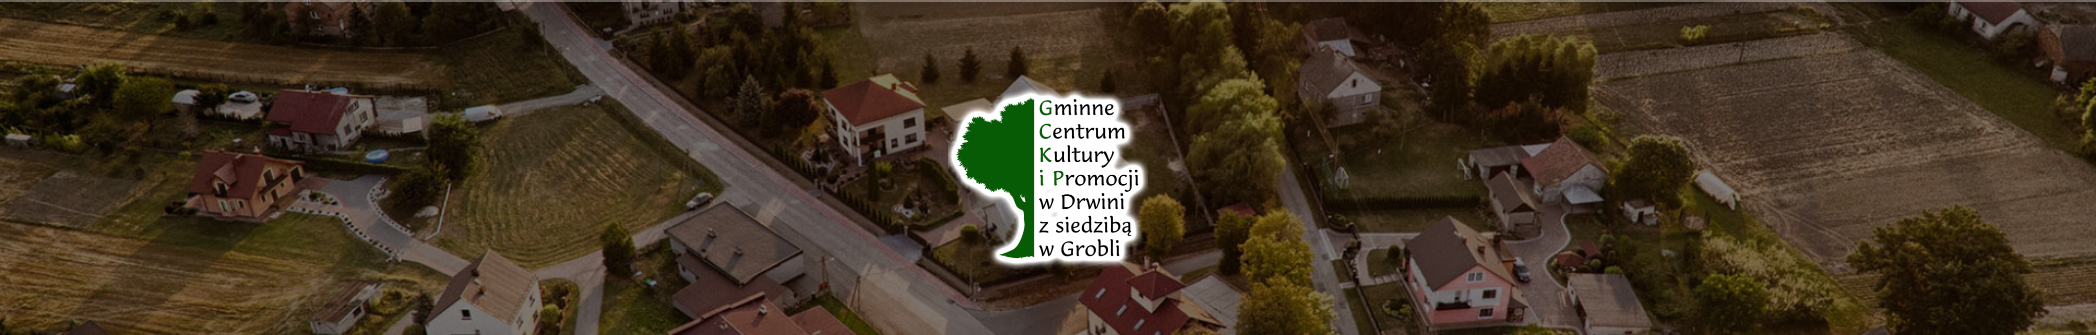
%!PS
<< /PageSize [2096 335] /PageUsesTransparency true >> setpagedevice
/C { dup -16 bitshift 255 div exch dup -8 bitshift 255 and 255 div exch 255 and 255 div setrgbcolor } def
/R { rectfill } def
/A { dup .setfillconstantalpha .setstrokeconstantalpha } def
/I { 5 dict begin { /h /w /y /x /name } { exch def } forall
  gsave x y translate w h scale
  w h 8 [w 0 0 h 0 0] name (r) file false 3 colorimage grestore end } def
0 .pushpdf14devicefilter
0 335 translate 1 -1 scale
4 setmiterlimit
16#FFFFFF C
0 0 2096 335 R
(1.rgb) 0 0 2096 335 I
0.15 A
0 0 2096 2 R
0.2 A
0 0 2096 1 R
0 1 2096 1 R
1 A
(2.rgb) 948 86 200 184 I
.poppdf14devicefilter showpage
